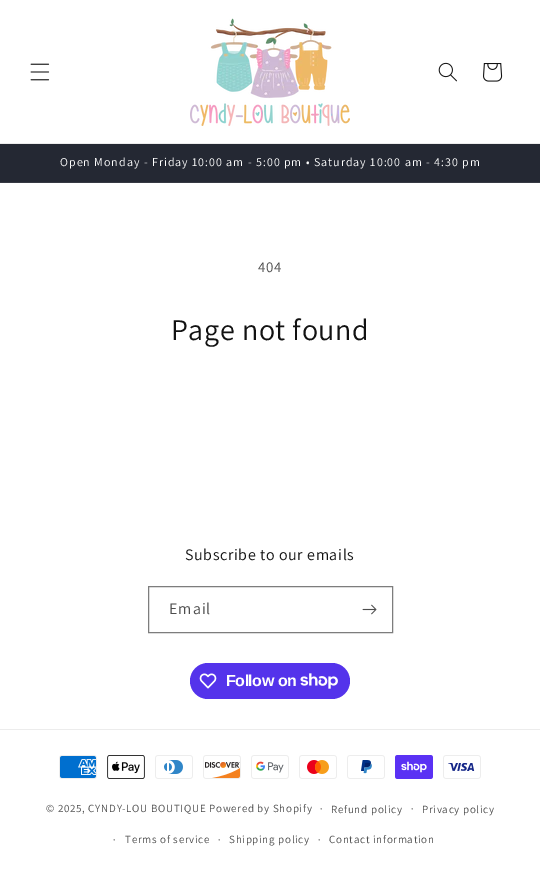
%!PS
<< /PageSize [540 882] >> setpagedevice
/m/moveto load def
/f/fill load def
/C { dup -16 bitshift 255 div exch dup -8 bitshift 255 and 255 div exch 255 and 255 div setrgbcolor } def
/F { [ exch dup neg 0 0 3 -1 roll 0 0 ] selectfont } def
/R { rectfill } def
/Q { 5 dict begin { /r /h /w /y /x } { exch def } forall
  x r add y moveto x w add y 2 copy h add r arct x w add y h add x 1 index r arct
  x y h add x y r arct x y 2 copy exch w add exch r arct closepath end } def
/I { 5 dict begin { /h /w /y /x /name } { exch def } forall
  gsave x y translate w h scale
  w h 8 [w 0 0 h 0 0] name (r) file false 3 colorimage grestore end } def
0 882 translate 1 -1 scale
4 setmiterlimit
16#FFFFFF C
0 0 540 882 R
16#ECECEC C
0 143 540 1 R
(1.rgb) 30 63 20 18 I
(2.rgb) 190 18 160 108 I
(3.rgb) 438 62 19 20 I
(4.rgb) 483 63 20 19 I
16#242833 C
0 144 540 38 R
16#363943 C
0 182 540 1 R
/Assistant-Regular 12 F
16#FFFFFF C
60 166 m 1 0 (Open Monday - Friday 10:00 am - 5:00 pm • Saturday 10:00 am - 4:30 pm) ashow
/Assistant-Regular 15 F
16#4D4D4D C
258 272 m .6 0 (404) ashow
/Assistant-Regular 30 F
16#121212 C
171 340 m .6 0 (Page not found) ashow
/Assistant-Regular 16 F
185 560 m .6 0 (Subscribe to our emails) ashow
16#7D7D7D C
148.5 586.5 244 46 rectstroke
16#4D4D4D C
169 614 m 1 0 (Email) ashow
(5.rgb) 362 604 15 11 I
16#5433EB C
190 663 160 36 18 Q f
(6.rgb) 199 673 18 16 I
/LiberationSans-Bold 16 F
16#FFFFFF C
226 686 m -.5 0 (Follow on) ashow
(7.rgb) 300 673 38 16 I
16#ECECEC C
0 729 540 1 R
(8.rgb) 59 755 38 24 I
(9.rgb) 107 755 38 24 I
(10.rgb) 155 755 38 24 I
(11.rgb) 203 755 38 24 I
(12.rgb) 251 755 38 24 I
(13.rgb) 299 755 38 24 I
(14.rgb) 347 755 38 24 I
(15.rgb) 395 755 38 24 I
(16.rgb) 443 755 38 24 I
/Assistant-Regular 11 F
16#4D4D4D C
46 812 m .7 0 (© 2025, CYNDY-LOU BOUTIQUE Powered by Shopify) ashow
/Assistant-Regular 10 F
320 812 m .7 0 (·) ashow
/Assistant-Regular 11 F
331 813 m .7 0 (Refund policy) ashow
/Assistant-Regular 10 F
411 812 m .7 0 (·) ashow
/Assistant-Regular 11 F
422 813 m .7 0 (Privacy policy) ashow
/Assistant-Regular 10 F
113 843 m .7 0 (·) ashow
/Assistant-Regular 11 F
125 843 m .7 0 (Terms of service) ashow
/Assistant-Regular 10 F
218 843 m .7 0 (·) ashow
/Assistant-Regular 11 F
229 843 m .7 0 (Shipping policy) ashow
/Assistant-Regular 10 F
318 843 m .7 0 (·) ashow
/Assistant-Regular 11 F
329 843 m .7 0 (Contact information) ashow
showpage
